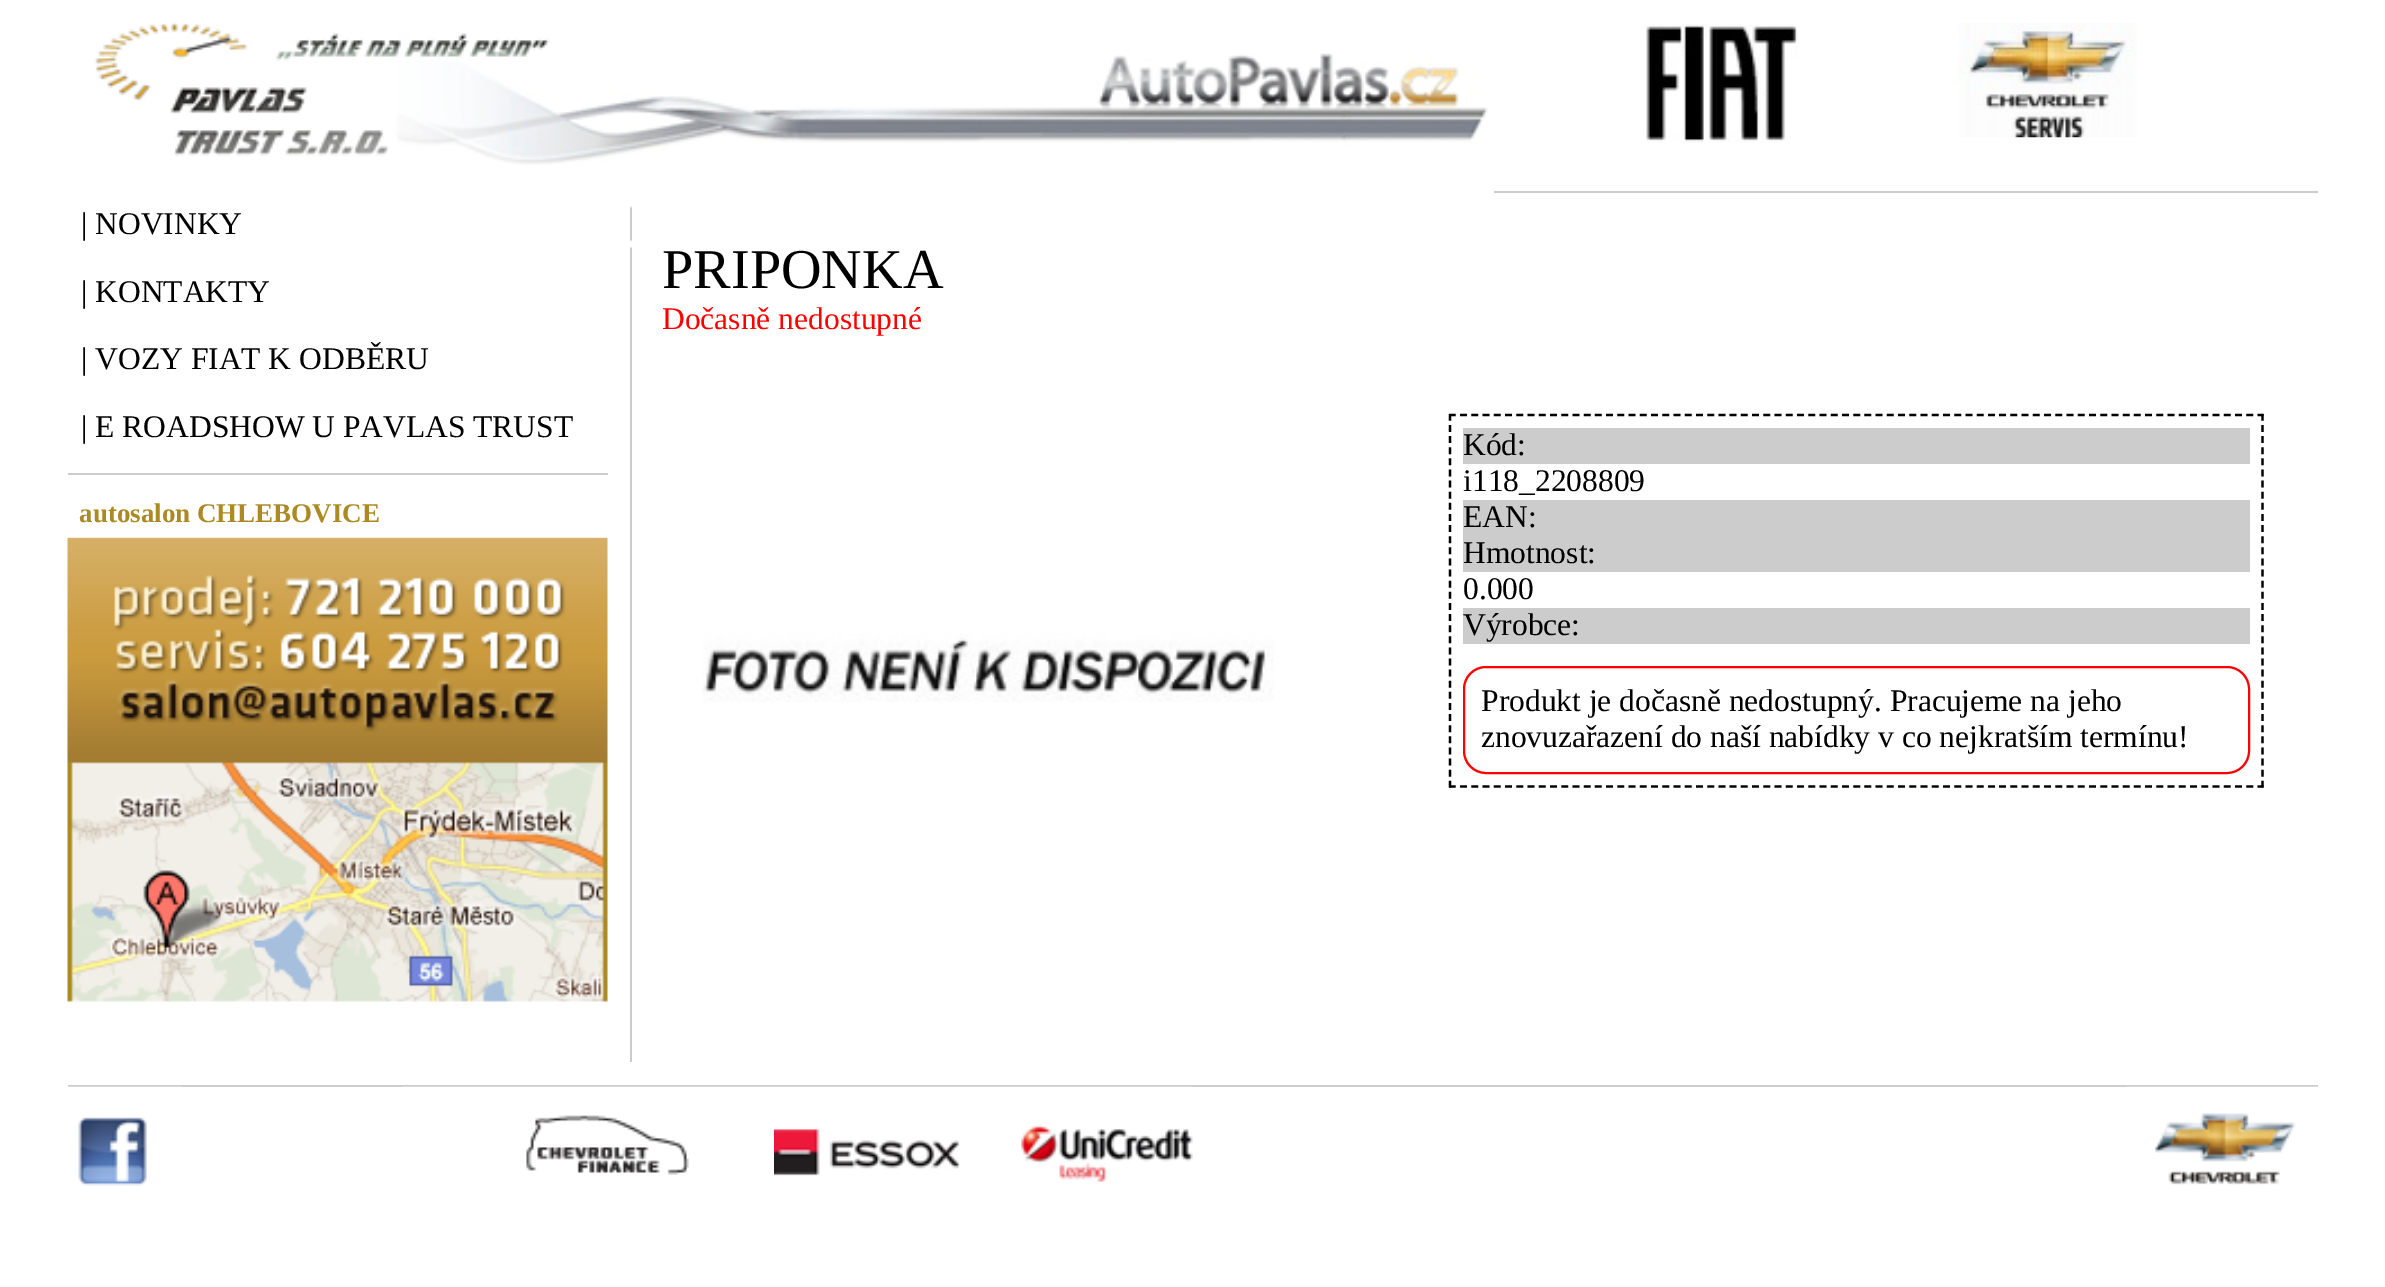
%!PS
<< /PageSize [2385 1287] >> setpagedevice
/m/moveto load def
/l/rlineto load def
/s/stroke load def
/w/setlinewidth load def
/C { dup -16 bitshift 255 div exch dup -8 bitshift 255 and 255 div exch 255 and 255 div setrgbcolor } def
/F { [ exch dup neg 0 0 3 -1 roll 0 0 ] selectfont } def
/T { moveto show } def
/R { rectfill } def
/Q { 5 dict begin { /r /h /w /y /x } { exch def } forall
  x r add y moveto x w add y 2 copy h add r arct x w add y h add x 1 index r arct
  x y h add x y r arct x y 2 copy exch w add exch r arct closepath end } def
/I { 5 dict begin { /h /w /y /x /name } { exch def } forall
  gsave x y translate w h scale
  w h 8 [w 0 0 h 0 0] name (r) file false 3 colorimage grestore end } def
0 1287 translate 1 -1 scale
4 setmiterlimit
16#FFFFFF C
0 0 2385 1287 R
16#CCCCCC C
630 206 2 856 R
(1.rgb) 94 22 1400 226 I
(2.rgb) 1645 24 153 119 I
(3.rgb) 1958 23 179 115 I
68 473 540 2 R
/LiberationSerif-Regular 31.5 F
16#000000 C
(| NOVINKY) 81 234 T
(| KONTAKTY) 81 302 T
(| VOZY FIAT K ODBĚRU) 81 369 T
(| E ROADSHOW U PAVLAS TRUST) 81 437 T
/LiberationSerif-Bold 27 F
16#AD8924 C
(autosalon CHLEBOVICE) 79 522 T
(4.rgb) 67 537 541 465 I
16#CCCCCC C
1494 191 824 2 R
/LiberationSerif-Regular 56.25 F
16#000000 C
(PRIPONKA) 662 288 T
/LiberationSerif-Regular 31.5 F
16#FF0000 C
(Dočasně nedostupné) 662 329 T
(5.rgb) 702 633 572 69 I
16#000000 C
2.2 w
[6.75 4.48] 0 setdash
1449 415 m 814.5 0 l s
[6.75 4.37] 0 setdash
2262.5 414 m 0 373.5 l s
[6.75 4.48] 0 setdash
1449 786.5 m 814.5 0 l s
[6.75 4.37] 0 setdash
1450 414 m 0 373.5 l s
16#CCCCCC C
1463 428 787 36 R
16#000000 C
(Kód:) 1463 455 T
(i118_2208809) 1463 491 T
16#CCCCCC C
1463 500 787 72 R
16#000000 C
(EAN:) 1463 527 T
(Hmotnost:) 1463 563 T
(0.000) 1463 599 T
16#CCCCCC C
1463 608 787 36 R
16#000000 C
(Výrobce:) 1463 635 T
16#FF0000 C
2 w
[] 0 setdash
1464 667 785 106 22 Q s
16#000000 C
(Produkt je dočasně nedostupný. Pracujeme na jeho) 1481 711 T
(znovuzařazení do naší nabídky v co nejkratším termínu!) 1481 747 T
16#CCCCCC C
68 1085 2250 2 R
(6.rgb) 68 1086 114 100 I
(7.rgb) 403 1086 371 89 I
(8.rgb) 774 1086 248 90 I
(9.rgb) 1021 1086 172 96 I
(10.rgb) 2126 1086 192 99 I
showpage
